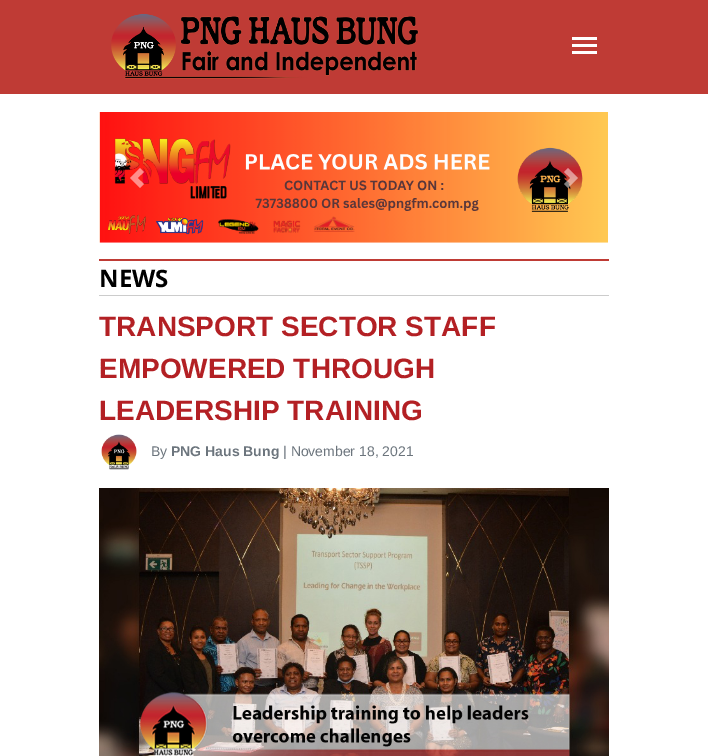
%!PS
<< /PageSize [708 756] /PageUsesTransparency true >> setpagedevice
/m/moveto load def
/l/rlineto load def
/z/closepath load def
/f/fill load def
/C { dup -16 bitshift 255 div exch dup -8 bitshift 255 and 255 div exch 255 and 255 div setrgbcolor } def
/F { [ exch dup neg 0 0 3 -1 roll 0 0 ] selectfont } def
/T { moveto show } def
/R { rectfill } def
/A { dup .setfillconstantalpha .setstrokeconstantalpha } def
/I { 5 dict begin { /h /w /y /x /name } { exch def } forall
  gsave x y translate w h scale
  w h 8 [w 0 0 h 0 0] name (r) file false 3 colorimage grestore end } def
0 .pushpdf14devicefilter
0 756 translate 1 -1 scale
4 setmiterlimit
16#FFFFFF C
0 0 708 756 R
16#BF3B35 C
0 0 708 94 R
(1.rgb) 111 14 308 65 I
16#FFFFFF C
572 37 25 3 R
572 44 25 3 R
572 51 25 3 R
(2.rgb) 99 112 509 131 I
0.5 A
140 168 m -10 10 l 10 10 l 4 -4 l -6.5 -6 l 6.5 -6 l z f
568 168 m -4 4 l 6.5 6 l -6.5 6 l 4 4 l 10 -10 l z f
1 A
16#BF3B35 C
99 259 510 2 R
16#CCCCCC C
99 295 510 1 R
/OpenSans-Bold 24 F
16#000000 C
(NEWS) 99 287 T
/LiberationSans-Bold 28 F
16#B32024 C
(TRANSPORT SECTOR STAFF) 99 336 T
(EMPOWERED THROUGH) 99 378 T
(LEADERSHIP TRAINING) 99 420 T
(3.rgb) 101 434 36 36 I
/LiberationSans-Regular 14 F
16#6C757D C
(By) 151 456 T
/LiberationSans-Bold 14 F
(PNG Haus Bung) 171 456 T
/LiberationSans-Regular 14 F
(| November 18, 2021) 283 456 T
(4.rgb) 99 488 510 268 I
.poppdf14devicefilter showpage
